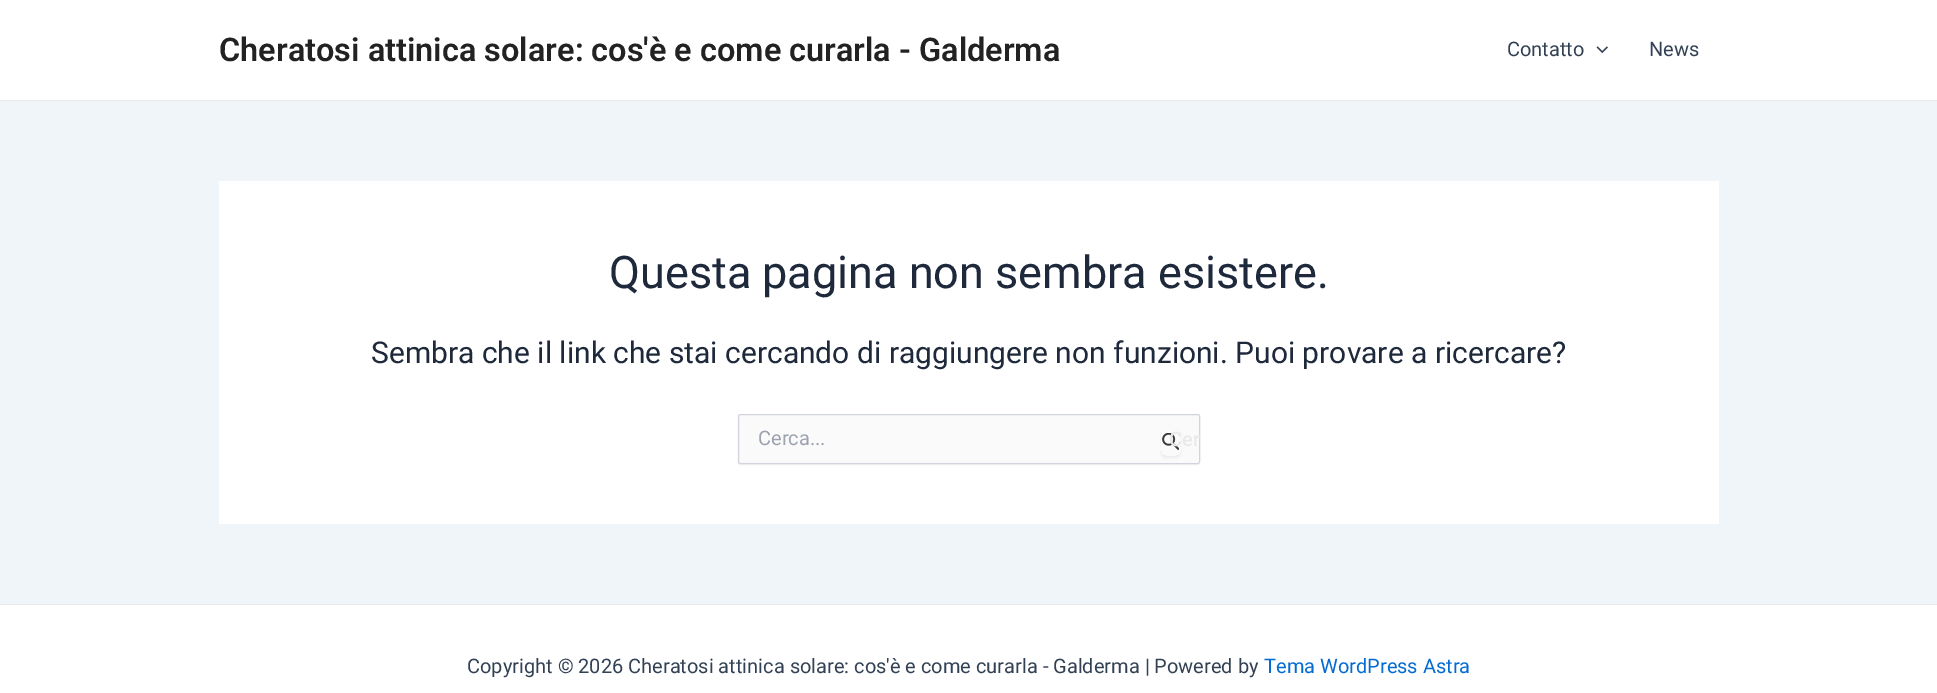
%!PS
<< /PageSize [1937 693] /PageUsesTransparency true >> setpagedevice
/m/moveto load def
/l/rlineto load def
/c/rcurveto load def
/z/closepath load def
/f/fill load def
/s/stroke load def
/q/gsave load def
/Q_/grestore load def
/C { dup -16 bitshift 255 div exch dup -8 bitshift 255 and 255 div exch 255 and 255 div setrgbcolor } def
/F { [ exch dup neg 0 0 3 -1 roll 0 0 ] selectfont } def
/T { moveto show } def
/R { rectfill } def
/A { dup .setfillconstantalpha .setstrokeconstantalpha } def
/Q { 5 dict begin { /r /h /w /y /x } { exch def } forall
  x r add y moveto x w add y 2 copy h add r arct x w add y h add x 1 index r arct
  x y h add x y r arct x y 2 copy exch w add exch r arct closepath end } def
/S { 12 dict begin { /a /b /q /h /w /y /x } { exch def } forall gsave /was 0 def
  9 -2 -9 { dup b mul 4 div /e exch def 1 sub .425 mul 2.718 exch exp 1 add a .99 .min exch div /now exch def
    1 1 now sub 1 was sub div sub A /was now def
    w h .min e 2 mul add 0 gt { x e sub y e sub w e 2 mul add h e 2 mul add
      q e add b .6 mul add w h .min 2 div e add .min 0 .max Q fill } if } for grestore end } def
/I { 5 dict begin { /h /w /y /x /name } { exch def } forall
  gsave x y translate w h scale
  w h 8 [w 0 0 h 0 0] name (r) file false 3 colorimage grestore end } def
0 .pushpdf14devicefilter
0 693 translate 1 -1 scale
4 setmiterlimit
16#F0F5FA C
0 0 1937 693 R
16#FFFFFF C
0 0 1937 100 R
16#EAEAEA C
0 100 1937 1 R
/Roboto-SemiBold 32.5 F
16#222222 C
(Cheratosi attinica solare: cos'è e come curarla - Galderma) 219 61 T
/Roboto-Regular 20 F
16#334155 C
(Contatto) 1507 56 T
(1.rgb) 1596 46 12 8 I
(News) 1649 56 T
16#FFFFFF C
219 181 1500 343 R
/Roboto-Regular 45 F
16#1E293B C
(Questa pagina non sembra esistere.) 609 288 T
/Roboto-Regular 30 F
(Sembra che il link che stai cercando di raggiungere non funzioni. Puoi provare a ricercare?) 371 363 T
16#000000 C
738 415 462 50 2.5 1 .05 S
16#FAFAFA C
738.5 414.5 461 49 2 Q q f Q_
16#D1D5DB C
s
/Roboto-Regular 20 F
16#9CA3AF C
(Cerca...) 758 445 T
q
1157 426 m 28 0 l 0 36 l -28 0 l z 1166 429 m 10 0 l 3 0 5 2 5 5 c 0 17 l 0 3 -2 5 -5 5 c -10 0 l -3 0 -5 -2 -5 -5 c 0 -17 l 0 -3 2 -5 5 -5 c z eoclip newpath
16#000000 C
1161 430 20 28 5 1 .05 S
Q_
(2.rgb) 1162 433 17 18 I
/Roboto-Medium 20 F
16#E9E9E9 C
(Cer) 1169 446 T
16#FFFFFF C
0 605 1937 88 R
16#EAEAEA C
0 604 1937 1 R
/Roboto-Regular 20 F
16#334155 C
(Copyright © 2026 Cheratosi attinica solare: cos'è e come curarla - Galderma | Powered by) 467 673 T
16#046BD2 C
(Tema WordPress Astra) 1264 673 T
.poppdf14devicefilter showpage
